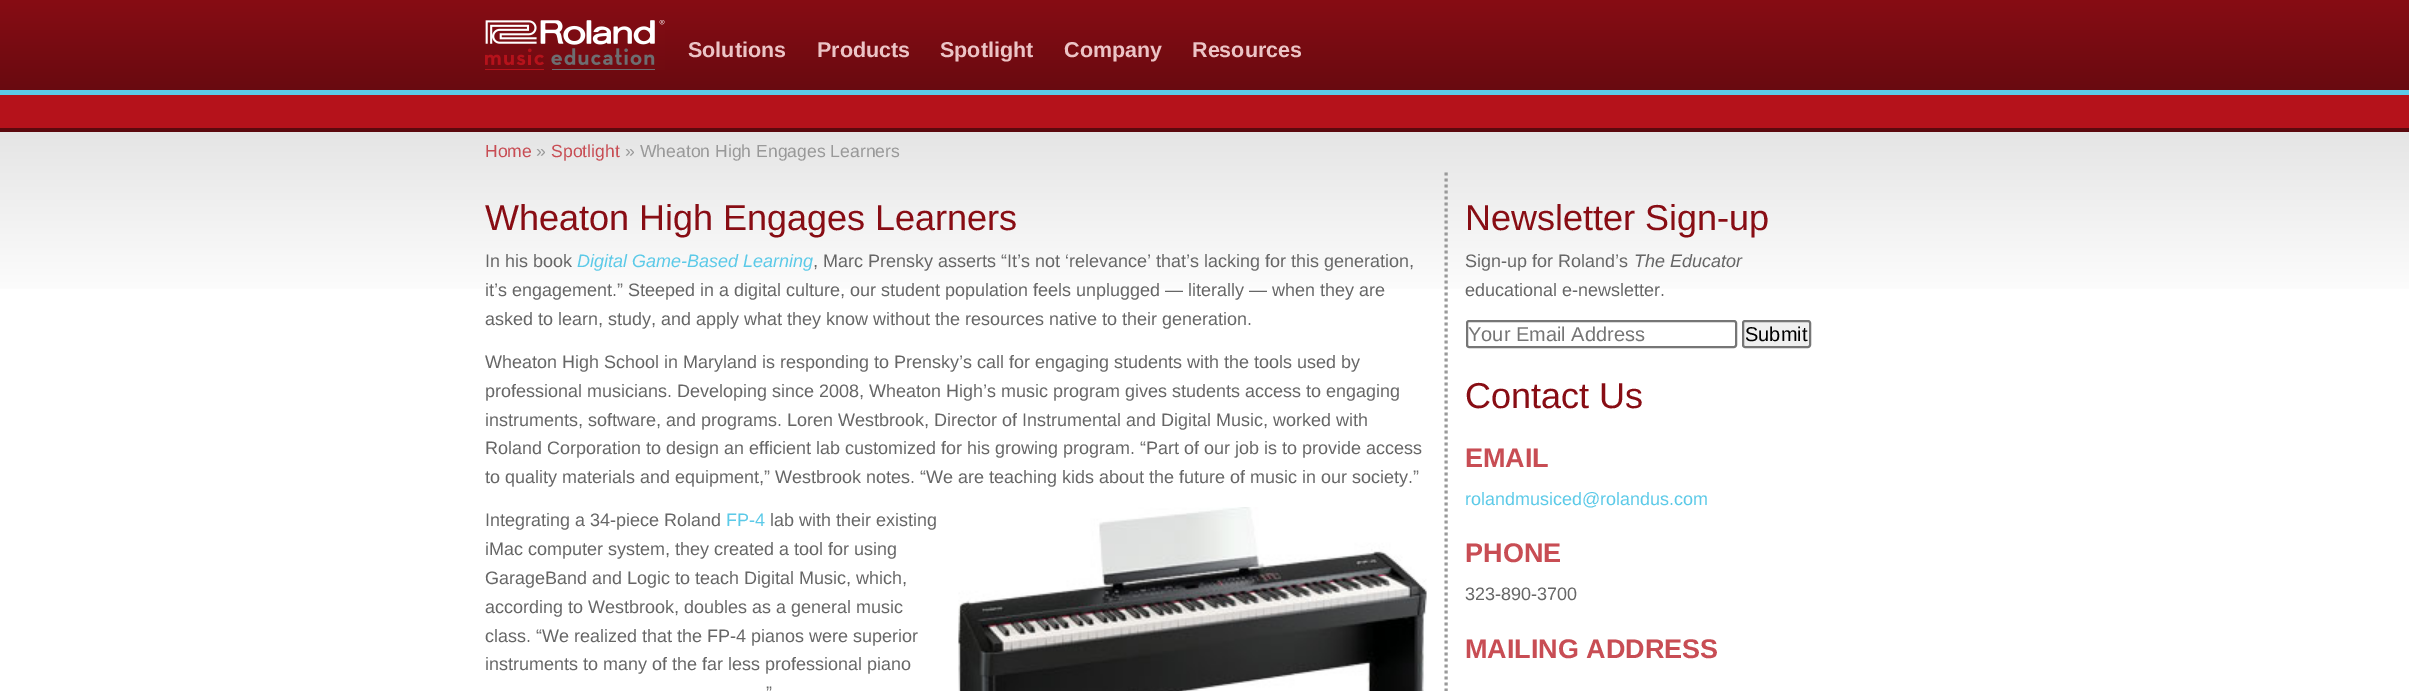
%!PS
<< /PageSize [2409 691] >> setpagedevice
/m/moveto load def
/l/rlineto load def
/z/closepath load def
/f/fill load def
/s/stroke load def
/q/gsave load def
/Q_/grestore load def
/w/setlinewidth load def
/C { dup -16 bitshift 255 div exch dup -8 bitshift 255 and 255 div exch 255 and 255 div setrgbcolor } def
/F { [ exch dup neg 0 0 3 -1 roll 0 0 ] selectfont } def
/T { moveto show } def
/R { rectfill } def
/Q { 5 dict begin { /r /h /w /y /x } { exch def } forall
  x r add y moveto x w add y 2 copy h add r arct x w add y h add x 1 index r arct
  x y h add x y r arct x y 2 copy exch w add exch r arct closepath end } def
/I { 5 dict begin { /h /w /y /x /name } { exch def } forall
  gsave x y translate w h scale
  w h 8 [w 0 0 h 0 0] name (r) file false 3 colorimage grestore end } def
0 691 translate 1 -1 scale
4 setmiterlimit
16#FFFFFF C
0 0 2409 691 R
q 0 0 m 2409 0 l 0 90 l -2409 0 l z clip newpath
<< /ShadingType 2 /ColorSpace /DeviceRGB /Coords [1205 0 1205 90] /Extend [true true] /Function << /FunctionType 2 /Domain [0 1] /C0 [.529 .051 .078] /C1 [.412 .039 .063] /N 1 >> >> shfill Q_
(1.rgb) 485 20 180 50 I
/LiberationSans-Bold 21.5 F
16#ECC4C6 C
(Solutions) 688 57 T
(Products) 817 57 T
(Spotlight) 940 57 T
(Company) 1064 57 T
(Resources) 1192 57 T
16#B5121B C
0 95 2409 33 R
16#5CCAE8 C
0 90 2409 5 R
16#5C090E C
0 128 2409 4 R
q 0 132 m 2409 0 l 0 157 l -2409 0 l z clip newpath
<< /ShadingType 2 /ColorSpace /DeviceRGB /Coords [1205 132 1205 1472] /Extend [true true] /Function << /FunctionType 3 /Domain [0 1] /Functions [<< /FunctionType 2 /Domain [0 1] /C0 [.898 .898 .898] /C1 [1 1 1] /N 1 >> << /FunctionType 2 /Domain [0 1] /C0 [1 1 1] /C1 [1 1 1] /N 1 >>] /Bounds [.13] /Encode [0 1 0 1] >> >> shfill Q_
/LiberationSans-Regular 17.6 F
16#C84D54 C
(Home) 485 157 T
16#999999 C
(») 536 157 T
16#C84D54 C
(Spotlight) 551 157 T
16#999999 C
(» Wheaton High Engages Learners) 625 157 T
/LiberationSans-Regular 36 F
16#880D14 C
(Wheaton High Engages Learners) 485 230 T
/LiberationSans-Regular 18 F
16#666666 C
(In his book) 485 267 T
/LiberationSans-Italic 18 F
16#5CCAE8 C
(Digital Game-Based Learning) 577 267 T
/LiberationSans-Regular 18 F
16#666666 C
(, Marc Prensky asserts “It’s not ‘relevance’ that’s lacking for this generation,) 813 267 T
(it’s engagement.” Steeped in a digital culture, our student population feels unplugged — literally — when they are) 485 296 T
(asked to learn, study, and apply what they know without the resources native to their generation.) 485 325 T
(Wheaton High School in Maryland is responding to Prensky’s call for engaging students with the tools used by) 485 368 T
(professional musicians. Developing since 2008, Wheaton High’s music program gives students access to engaging) 485 397 T
(instruments, software, and programs. Loren Westbrook, Director of Instrumental and Digital Music, worked with) 485 426 T
(Roland Corporation to design an efficient lab customized for his growing program. “Part of our job is to provide access) 485 454 T
(to quality materials and equipment,” Westbrook notes. “We are teaching kids about the future of music in our society.”) 485 483 T
(Integrating a 34-piece Roland) 485 526 T
16#5CCAE8 C
(FP-4) 726 526 T
16#666666 C
(lab with their existing) 770 526 T
(iMac computer system, they created a tool for using) 485 555 T
(GarageBand and Logic to teach Digital Music, which,) 485 584 T
(according to Westbrook, doubles as a general music) 485 613 T
(class. “We realized that the FP-4 pianos were superior) 485 642 T
(instruments to many of the far less professional piano) 485 670 T
(”) 766 699 T
(2.rgb) 958 507 469 184 I
16#999999 C
3 w
[3 3] 0 setdash
1446 172.5 m 0 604.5 l s
/LiberationSans-Regular 36 F
16#880D14 C
(Newsletter Sign-up) 1465 230 T
/LiberationSans-Regular 18 F
16#666666 C
(Sign-up for Roland’s) 1465 267 T
/LiberationSans-Italic 18 F
(The Educator) 1634 267 T
/LiberationSans-Regular 18 F
(educational e-newsletter.) 1465 296 T
16#767676 C
2 w
[] 0 setdash
1467 321 269 26 2 Q s
/LiberationSans-Regular 20 F
16#757575 C
(Your Email Address) 1468 341 T
16#EFEFEF C
1743 321 67 26 2 Q q f Q_
16#767676 C
s
16#000000 C
(Submit) 1745 341 T
/LiberationSans-Regular 36 F
16#880D14 C
(Contact Us) 1465 408 T
/LiberationSans-Bold 27 F
16#C84D54 C
(EMAIL) 1465 467 T
/LiberationSans-Regular 18 F
16#5CCAE8 C
(rolandmusiced@rolandus.com) 1465 505 T
/LiberationSans-Bold 27 F
16#C84D54 C
(PHONE) 1465 562 T
/LiberationSans-Regular 18 F
16#666666 C
(323-890-3700) 1465 600 T
/LiberationSans-Bold 27 F
16#C84D54 C
(MAILING ADDRESS) 1465 658 T
showpage
